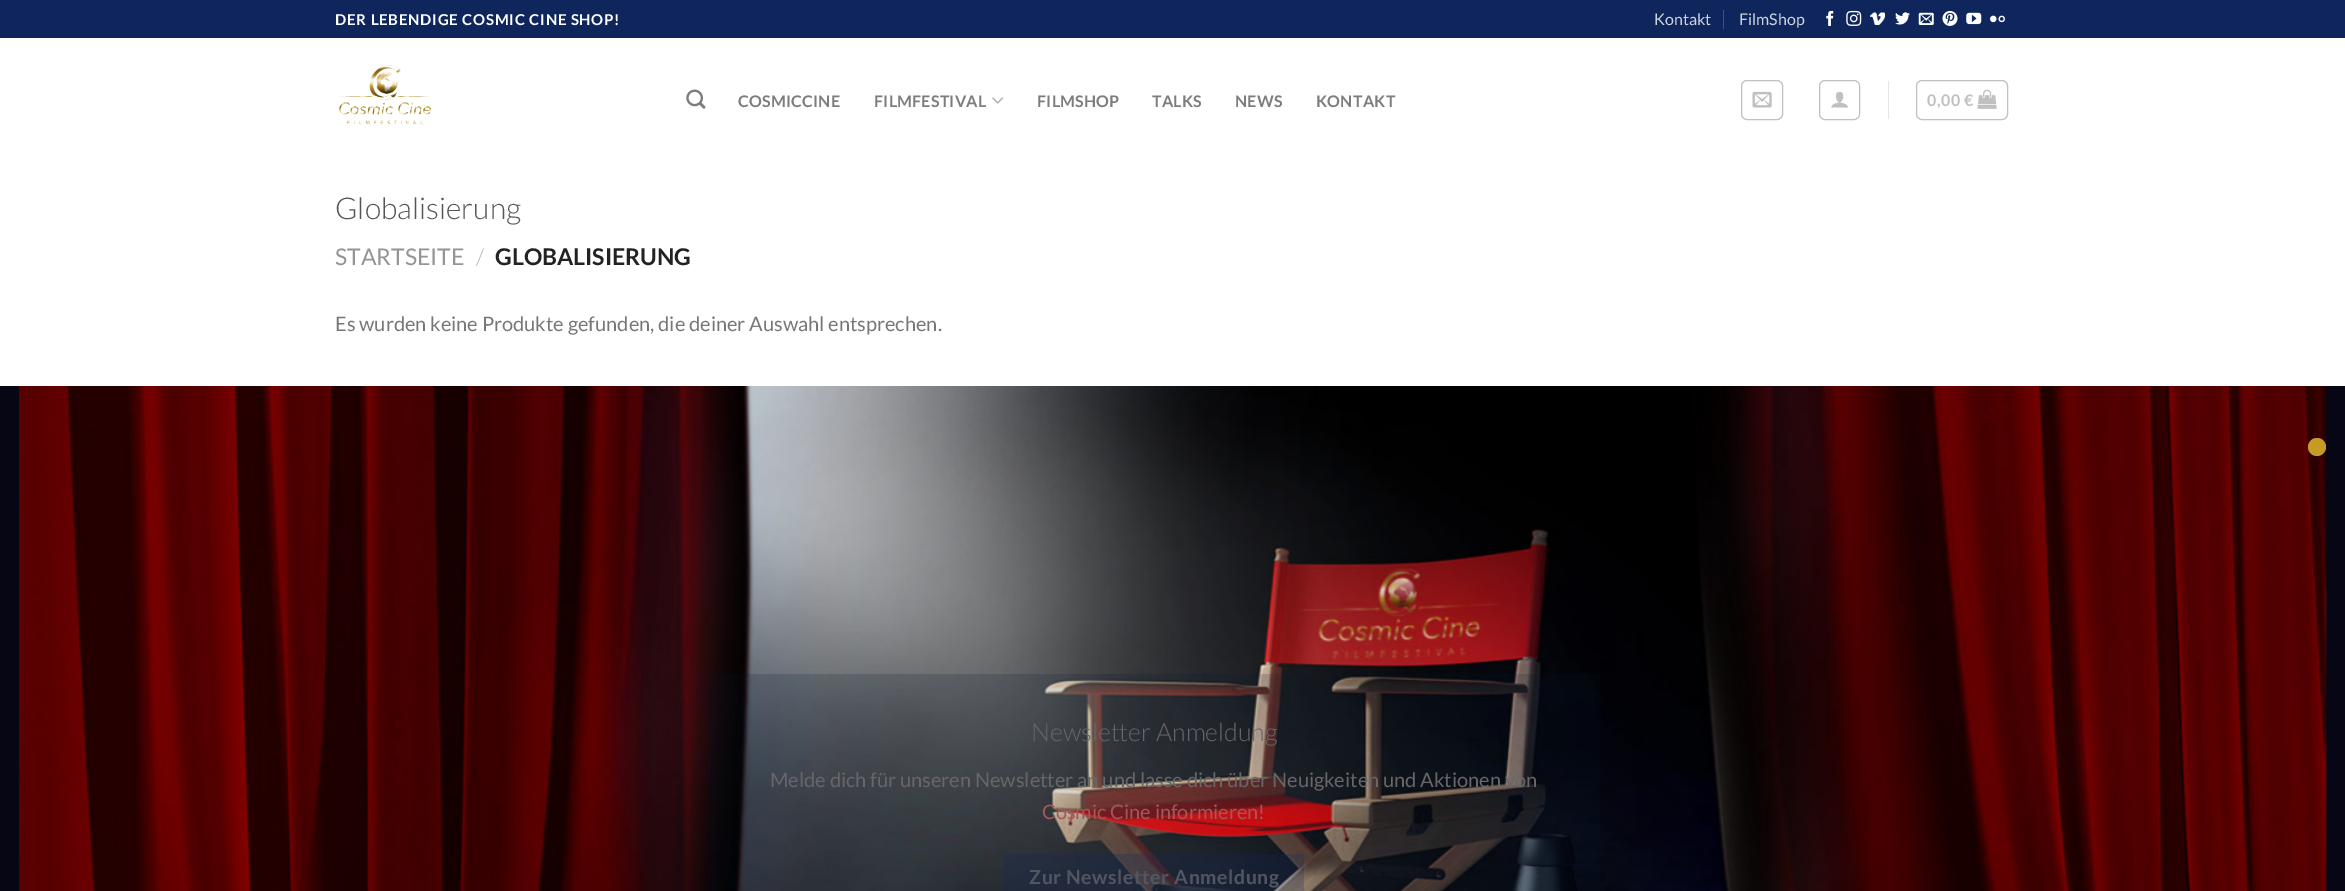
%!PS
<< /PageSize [2345 891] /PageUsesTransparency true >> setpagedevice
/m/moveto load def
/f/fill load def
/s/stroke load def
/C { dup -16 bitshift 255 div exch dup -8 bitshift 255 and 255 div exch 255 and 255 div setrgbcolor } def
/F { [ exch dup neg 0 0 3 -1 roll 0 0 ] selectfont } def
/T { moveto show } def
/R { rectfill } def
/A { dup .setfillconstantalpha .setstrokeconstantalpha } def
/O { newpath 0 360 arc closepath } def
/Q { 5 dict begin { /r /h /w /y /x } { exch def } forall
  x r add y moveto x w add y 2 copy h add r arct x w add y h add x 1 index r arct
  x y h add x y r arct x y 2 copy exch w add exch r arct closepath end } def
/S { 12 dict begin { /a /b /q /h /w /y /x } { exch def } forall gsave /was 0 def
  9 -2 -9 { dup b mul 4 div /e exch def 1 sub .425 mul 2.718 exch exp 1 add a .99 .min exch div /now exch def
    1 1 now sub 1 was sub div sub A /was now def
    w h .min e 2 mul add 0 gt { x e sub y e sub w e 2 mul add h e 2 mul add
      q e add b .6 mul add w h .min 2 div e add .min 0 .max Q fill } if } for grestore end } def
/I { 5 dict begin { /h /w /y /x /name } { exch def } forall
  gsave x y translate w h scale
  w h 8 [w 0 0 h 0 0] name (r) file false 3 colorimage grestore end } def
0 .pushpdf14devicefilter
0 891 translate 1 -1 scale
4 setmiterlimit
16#FFFFFF C
0 0 2345 891 R
16#0F265C C
0 0 2345 38 R
/Lato-Bold 15 F
16#FFFFFF C
335 25 m .75 0 (DER LEBENDIGE COSMIC CINE SHOP!) ashow
/Lato-Regular 16 F
16#CFD4DE C
(Kontakt) 1654 25 T
16#3F517D C
1723 10 1 19 R
16#CFD4DE C
(FilmShop) 1739 25 T
(1.rgb) 1826 10 8 16 I
(2.rgb) 1846 10 16 16 I
(3.rgb) 1870 12 15 13 I
(4.rgb) 1895 12 15 13 I
(5.rgb) 1918 12 16 13 I
(6.rgb) 1942 11 16 15 I
(7.rgb) 1966 12 16 13 I
(8.rgb) 1990 15 15 8 I
(9.rgb) 338 65 94 60 I
(10.rgb) 686 89 20 20 I
/Lato-Bold 16 F
16#7D7D7D C
738 107 m .25 0 (COSMICCINE) ashow
874 107 m .25 0 (FILMFESTIVAL) ashow
(11.rgb) 992 97 12 7 I
1037 107 m .25 0 (FILMSHOP) ashow
1152 107 m .25 0 (TALKS) ashow
1235 107 m .25 0 (NEWS) ashow
1316 107 m .25 0 (KONTAKT) ashow
16#C0C0C0 C
1741.5 80.5 41 39 5.5 Q s
(12.rgb) 1752 91 20 17 I
1819.5 80.5 40 39 5.5 Q s
(13.rgb) 1831 91 17 17 I
16#E6E6E6 C
1888 81 1 38 R
16#C0C0C0 C
1916.5 80.5 91 39 5.5 Q s
1927 106 m .5 0 (0,00 €) ashow
(14.rgb) 1977 89 20 20 I
/Lato-Light 30 F
16#555555 C
(Globalisierung) 335 219 T
/Lato-Regular 23 F
16#949494 C
(STARTSEITE) 335 265 T
/Lato-Light 23 F
16#B2B2B2 C
(/) 476 265 T
/Lato-Bold 23 F
16#222222 C
(GLOBALISIERUNG) 495 265 T
/Lato-Regular 20 F
16#777777 C
(Es wurden keine Produkte gefunden, die deiner Auswahl entsprechen.) 335 331 T
16#070614 C
0 386 2345 505 R
(15.rgb) 19 386 2308 505 I
0.16 A
16#00152D C
708 674 892 217 R
/Lato-Light 25 F
1 A
16#676669 C
(Newsletter Anmeldung) 1031 741 T
/Lato-Regular 20 F
(Melde dich für unseren Newsletter an und lasse dich über Neuigkeiten und Aktionen von) 770 787 T
16#A45758 C
(Cosmic Cine informieren!) 1042 819 T
0.23 A
16#0F265C C
1004 854 300 37 R
/Lato-Bold 19.4 F
1 A
16#525662 C
1029 884 m .6 0 (Zur Newsletter Anmeldung) ashow
16#000000 C
2309 439 19 19 9.5 .5 .3 S
16#C59A25 C
2317 447 9 O f
.poppdf14devicefilter showpage
